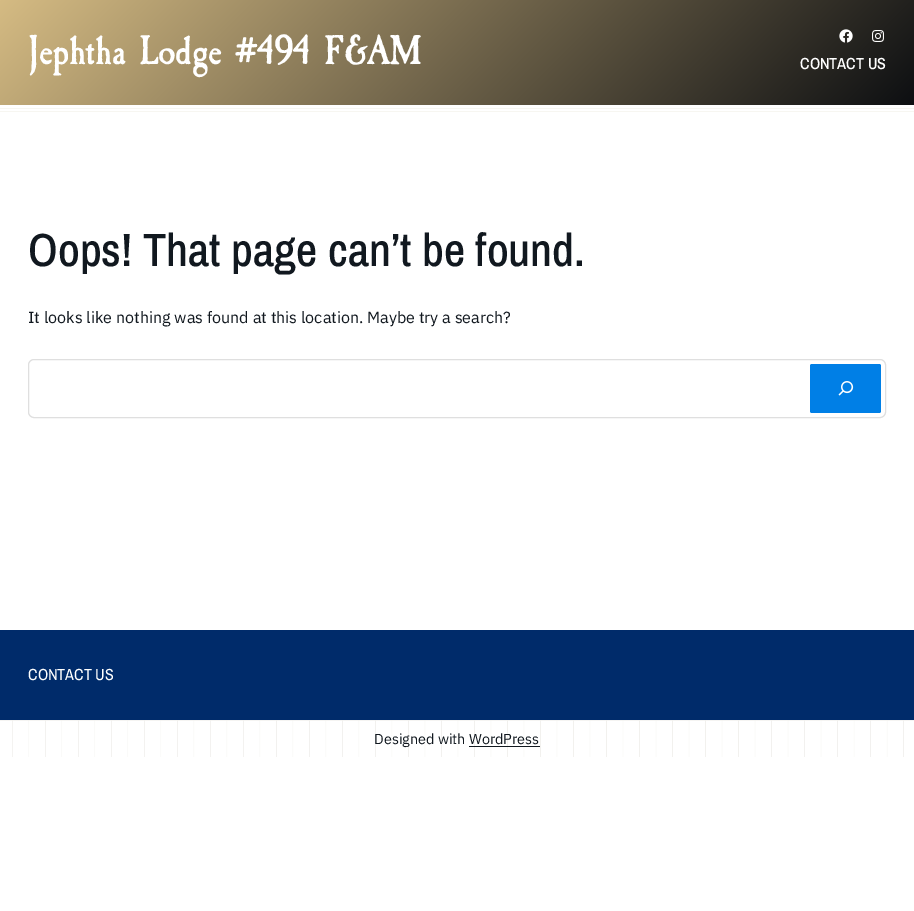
%!PS
<< /PageSize [914 911] >> setpagedevice
/m/moveto load def
/l/rlineto load def
/z/closepath load def
/f/fill load def
/s/stroke load def
/q/gsave load def
/Q_/grestore load def
/C { dup -16 bitshift 255 div exch dup -8 bitshift 255 and 255 div exch 255 and 255 div setrgbcolor } def
/F { [ exch dup neg 0 0 3 -1 roll 0 0 ] selectfont } def
/T { moveto show } def
/R { rectfill } def
/Q { 5 dict begin { /r /h /w /y /x } { exch def } forall
  x r add y moveto x w add y 2 copy h add r arct x w add y h add x 1 index r arct
  x y h add x y r arct x y 2 copy exch w add exch r arct closepath end } def
/I { 5 dict begin { /h /w /y /x /name } { exch def } forall
  gsave x y translate w h scale
  w h 8 [w 0 0 h 0 0] name (r) file false 3 colorimage grestore end } def
0 911 translate 1 -1 scale
4 setmiterlimit
16#FFFFFF C
0 0 914 911 R
q 0 0 m 914 0 l 0 105 l -914 0 l z clip newpath
<< /ShadingType 2 /ColorSpace /DeviceRGB /Coords [202 -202 712 307] /Extend [true true] /Function << /FunctionType 2 /Domain [0 1] /C0 [.835 .733 .514] /C1 [.051 .059 .071] /N 1 >> >> shfill Q_
/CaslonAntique-Bold 43.25 F
(Jephtha Lodge #494 F&AM) 28 64 T
(1.rgb) 839 29 14 14 I
(2.rgb) 872 30 12 12 I
/ArchivoNarrow-Medium 16.1 F
(CONTACT US) 800 69 T
16#F7F6F1 C
0 108 914 1 R
0 111 914 1 R
/ArchivoNarrow-Medium 46.5 F
16#11181F C
(Oops! That page can’t be found.) 28 266 T
/IBMPlexSans-Regular 16.1 F
(It looks like nothing was found at this location. Maybe try a search?) 28 323 T
16#DFDFDF C
28.5 359.5 857 58 5.5 Q s
16#007FE6 C
810 364 71 49 2 Q f
(3.rgb) 838 381 16 15 I
16#002B6A C
0 630 914 90 R
/ArchivoNarrow-Regular 16.1 F
16#FFFFFF C
(CONTACT US) 28 680 T
(4.rgb) 0 720 914 37 I
/IBMPlexSans-Regular 14.4 F
16#11181F C
(Designed with WordPress) 374 744 T
469 746 71 1 R
showpage
